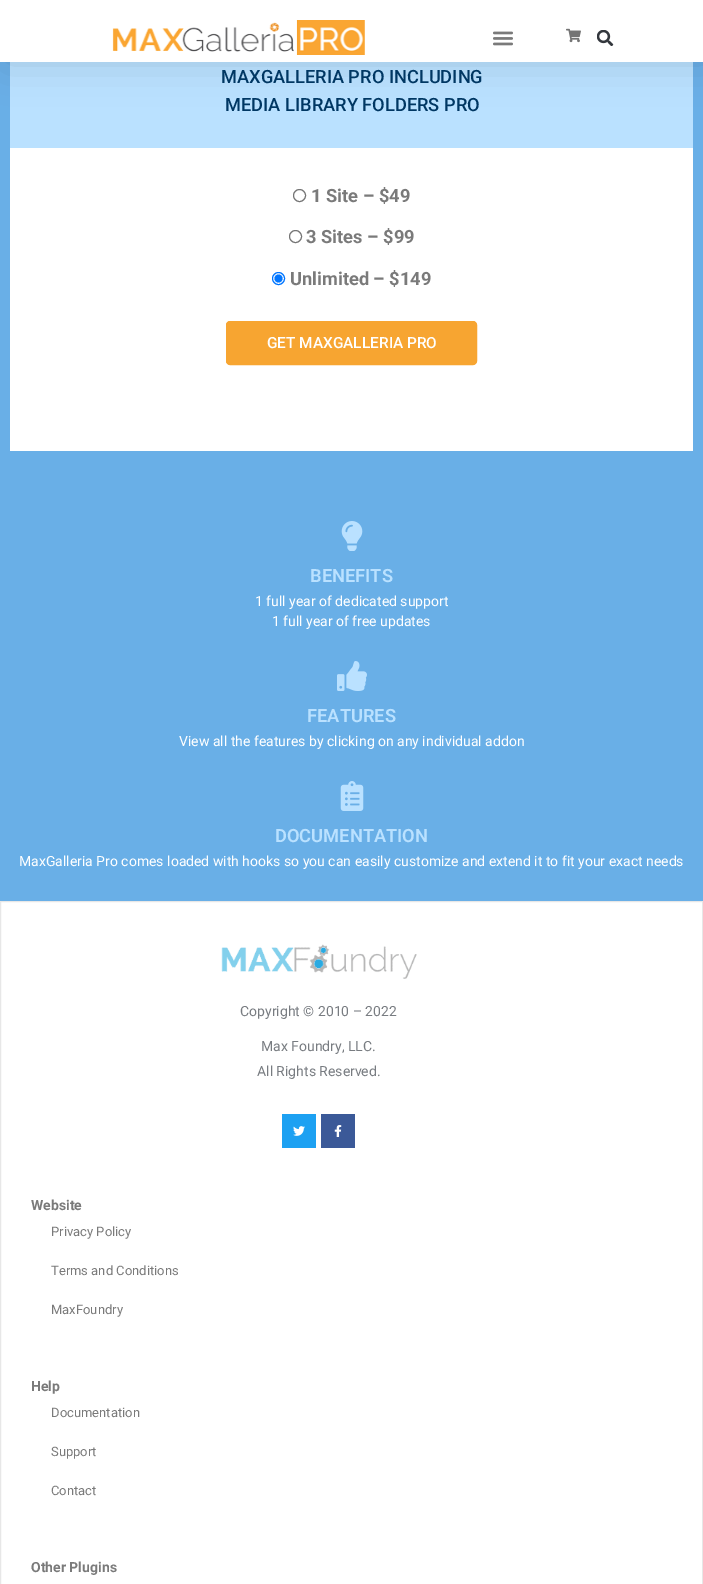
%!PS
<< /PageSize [703 1584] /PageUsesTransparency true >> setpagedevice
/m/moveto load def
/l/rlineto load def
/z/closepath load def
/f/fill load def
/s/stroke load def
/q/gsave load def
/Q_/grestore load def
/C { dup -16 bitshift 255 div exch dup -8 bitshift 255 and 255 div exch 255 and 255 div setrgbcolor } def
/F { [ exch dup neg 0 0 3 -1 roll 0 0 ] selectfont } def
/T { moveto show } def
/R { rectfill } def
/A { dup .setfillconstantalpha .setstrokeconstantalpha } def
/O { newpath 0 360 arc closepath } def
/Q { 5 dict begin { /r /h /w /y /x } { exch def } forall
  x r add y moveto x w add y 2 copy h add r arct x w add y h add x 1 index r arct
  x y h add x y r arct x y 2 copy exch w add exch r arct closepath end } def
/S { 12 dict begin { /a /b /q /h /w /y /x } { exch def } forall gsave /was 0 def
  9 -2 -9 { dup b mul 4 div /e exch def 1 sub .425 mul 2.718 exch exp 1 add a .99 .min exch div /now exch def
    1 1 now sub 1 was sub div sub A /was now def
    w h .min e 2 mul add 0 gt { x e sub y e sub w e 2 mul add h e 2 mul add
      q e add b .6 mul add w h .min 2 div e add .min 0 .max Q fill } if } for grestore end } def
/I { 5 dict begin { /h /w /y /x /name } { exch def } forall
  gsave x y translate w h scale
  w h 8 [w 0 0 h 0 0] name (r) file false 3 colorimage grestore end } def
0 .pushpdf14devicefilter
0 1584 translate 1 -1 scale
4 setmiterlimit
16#69AFE7 C
0 0 703 1584 R
16#BAE1FF C
10 62 683 86 R
16#000000 C
5 0 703 62 0 20 .13 S
16#FFFFFF C
0 0 703 62 R
(1.rgb) 112 20 253 35 I
(2.rgb) 493 31 20 15 I
(3.rgb) 566 28 15 15 I
(4.rgb) 597 30 17 16 I
/Roboto-Medium 18.25 F
16#003763 C
(MAXGALLERIA PRO INCLUDING) 221 83 T
(MEDIA LIBRARY FOLDERS PRO) 225 111 T
16#FFFFFF C
10 148 683 303 R
16#767676 C
299.5 195.5 6 O s
/Roboto-Bold 18.25 F
16#7A7A7A C
(1 Site – $49) 311 202 T
16#767676 C
295.5 236.5 6 O s
16#7A7A7A C
(3 Sites – $99) 306 243 T
16#0075FF C
278.5 278.5 6 O s
278.5 278.5 4 O f
16#7A7A7A C
(Unlimited – $149) 290 285 T
16#F7A531 C
226.5 321.5 250 43 3.5 Q q f Q_
s
/Roboto-Medium 15.4 F
16#FFFFFF C
(GET MAXGALLERIA PRO) 267 348 T
(5.rgb) 341 521 22 30 I
/Roboto-SemiBold 18.25 F
16#BAE1FF C
(BENEFITS) 310 582 T
/Roboto-Regular 14 F
16#FFFFFF C
(1 full year of dedicated support) 255 606 T
(1 full year of free updates) 272 626 T
(6.rgb) 337 661 30 30 I
/Roboto-SemiBold 18.25 F
16#BAE1FF C
(FEATURES) 307 722 T
/Roboto-Regular 14 F
16#FFFFFF C
(View all the features by clicking on any individual addon) 179 746 T
(7.rgb) 340 781 24 30 I
/Roboto-SemiBold 18.25 F
16#BAE1FF C
(DOCUMENTATION) 275 842 T
/Roboto-Regular 14 F
16#FFFFFF C
(MaxGalleria Pro comes loaded with hooks so you can easily customize and extend it to fit your exact needs) 19 866 T
.5 901.5 m 702 0 l 0 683 l -702 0 l z q f Q_
16#E7E7E7 C
s
(8.rgb) 221 944 196 35 I
16#787C81 C
(Copyright © 2010 – 2022) 240 1016 T
(Max Foundry, LLC.) 261 1051 T
(All Rights Reserved.) 257 1076 T
16#1DA1F2 C
282 1114 34 34 R
(9.rgb) 293 1126 12 10 I
16#3B5998 C
321 1114 34 34 R
(10.rgb) 334 1125 8 12 I
/Roboto-Bold 14 F
16#7A7A7A C
(Website) 31 1210 T
/Roboto-Regular 13 F
(Privacy Policy) 51 1236 T
(Terms and Conditions) 51 1275 T
(MaxFoundry) 51 1314 T
/Roboto-Bold 14 F
(Help) 31 1391 T
/Roboto-Regular 13 F
(Documentation) 51 1417 T
(Support) 51 1456 T
(Contact) 51 1495 T
/Roboto-Bold 14 F
(Other Plugins) 31 1572 T
.poppdf14devicefilter showpage
